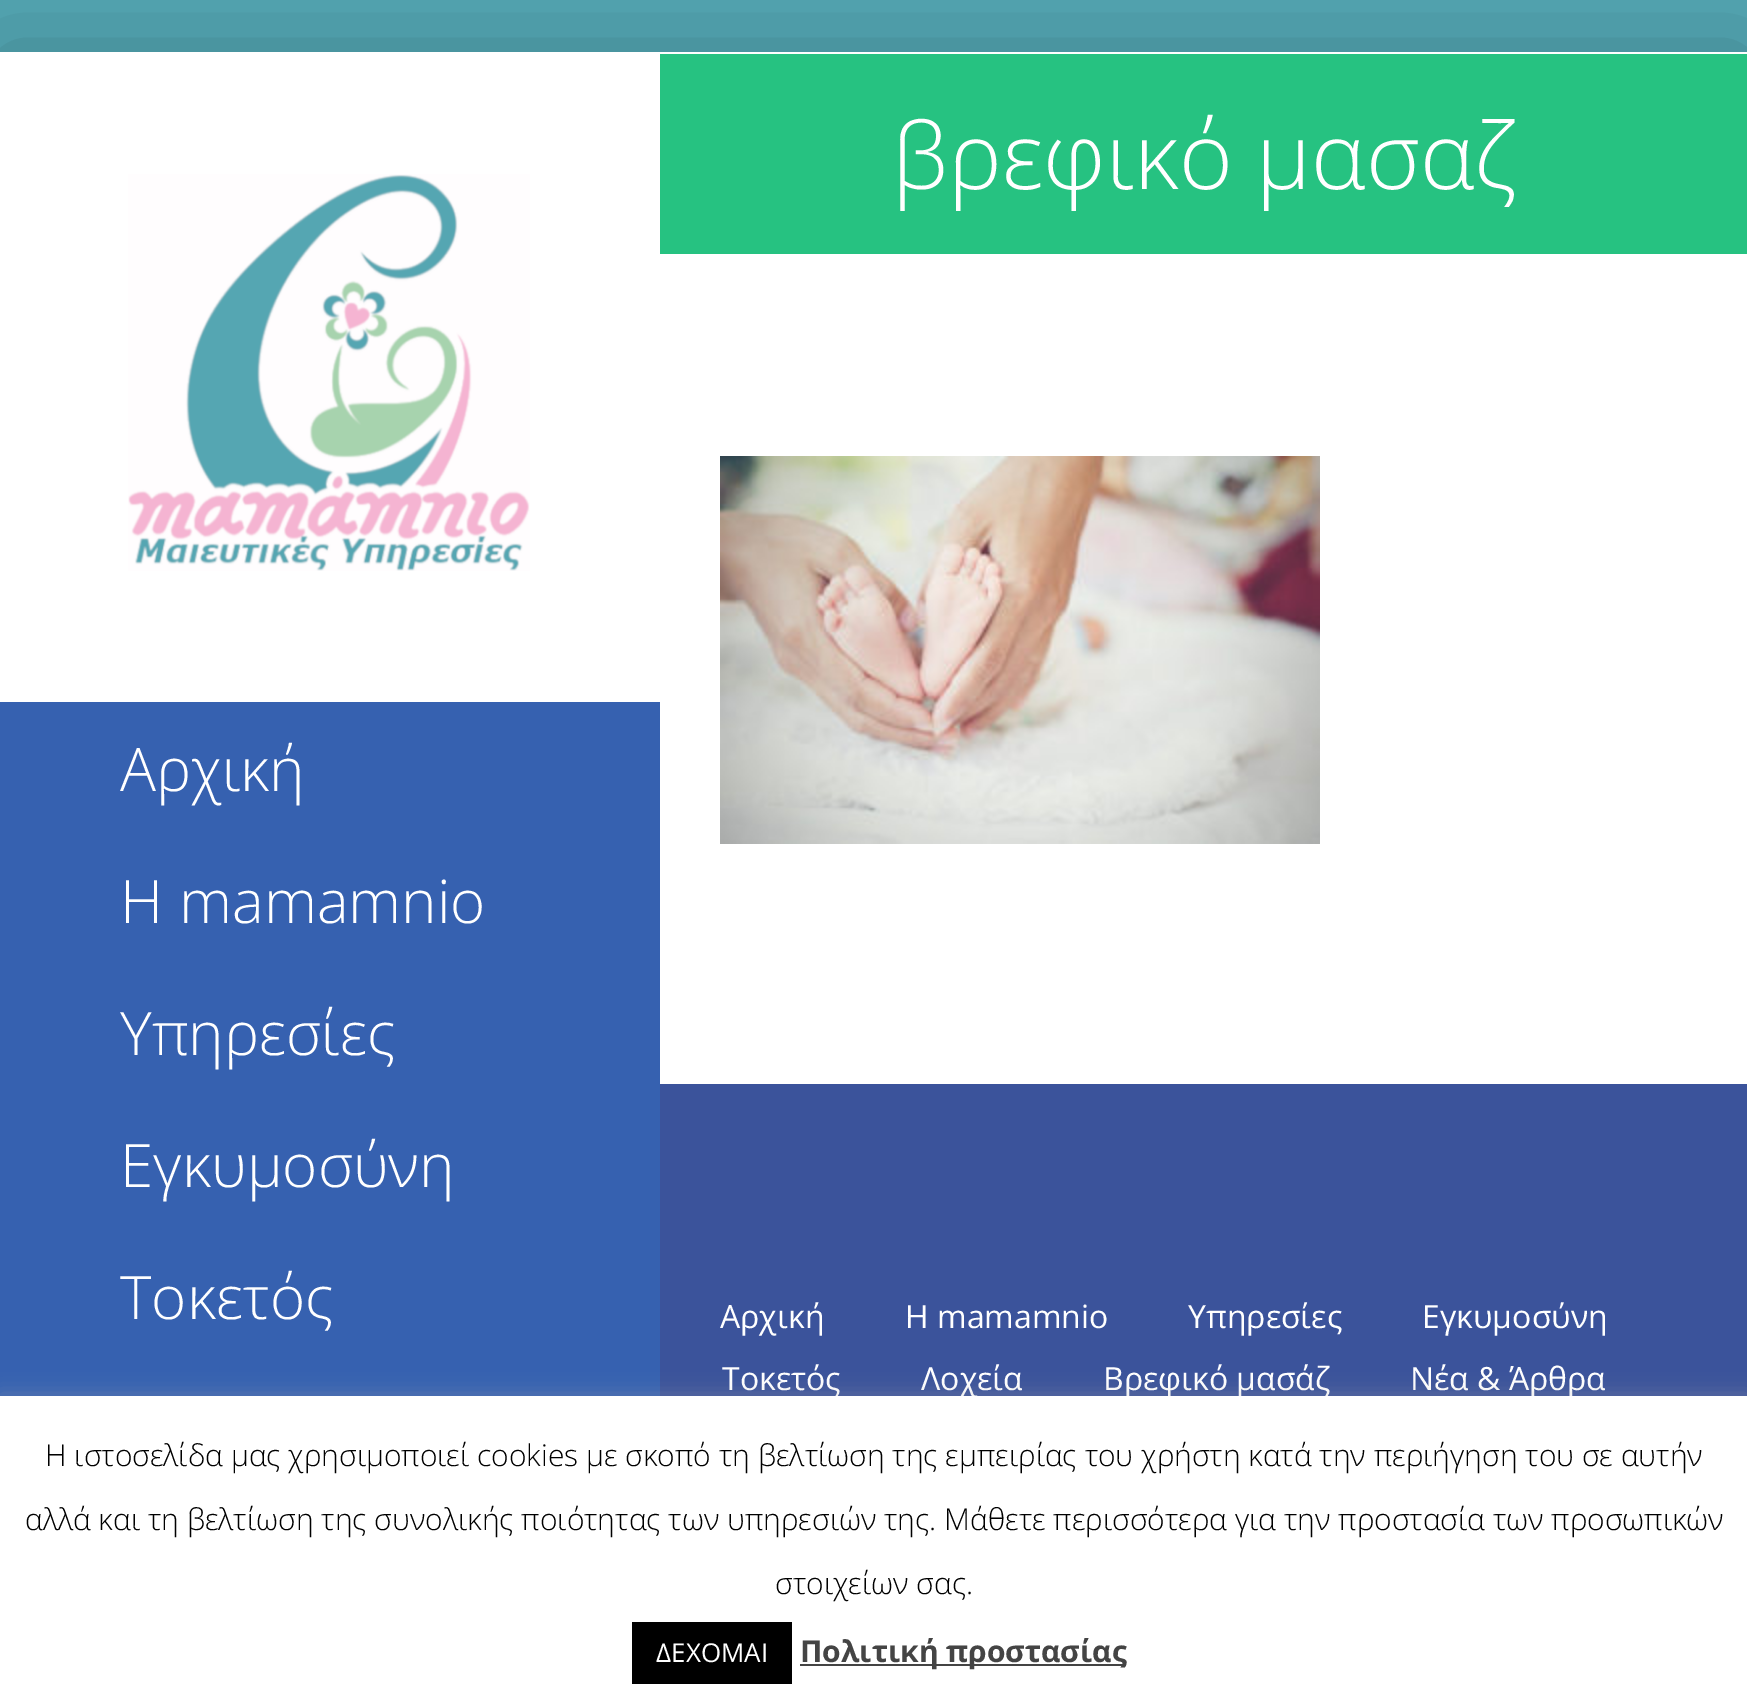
%!PS
<< /PageSize [1747 1708] /PageUsesTransparency true >> setpagedevice
/C { dup -16 bitshift 255 div exch dup -8 bitshift 255 and 255 div exch 255 and 255 div setrgbcolor } def
/F { [ exch dup neg 0 0 3 -1 roll 0 0 ] selectfont } def
/T { moveto show } def
/R { rectfill } def
/A { dup .setfillconstantalpha .setstrokeconstantalpha } def
/Q { 5 dict begin { /r /h /w /y /x } { exch def } forall
  x r add y moveto x w add y 2 copy h add r arct x w add y h add x 1 index r arct
  x y h add x y r arct x y 2 copy exch w add exch r arct closepath end } def
/S { 12 dict begin { /a /b /q /h /w /y /x } { exch def } forall gsave /was 0 def
  9 -2 -9 { dup b mul 4 div /e exch def 1 sub .425 mul 2.718 exch exp 1 add a .99 .min exch div /now exch def
    1 1 now sub 1 was sub div sub A /was now def
    w h .min e 2 mul add 0 gt { x e sub y e sub w e 2 mul add h e 2 mul add
      q e add b .6 mul add w h .min 2 div e add .min 0 .max Q fill } if } for grestore end } def
/I { 5 dict begin { /h /w /y /x /name } { exch def } forall
  gsave x y translate w h scale
  w h 8 [w 0 0 h 0 0] name (r) file false 3 colorimage grestore end } def
0 .pushpdf14devicefilter
0 1708 translate 1 -1 scale
4 setmiterlimit
16#55A6B2 C
0 0 1747 1708 R
16#000000 C
-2 50 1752 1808 0 50 .22 S
16#26C281 C
660 54 1087 200 R
16#FFFFFF C
660 52 1087 2 R
660 254 1087 830 R
/OpenSans-Light 92 F
(βρεφικό μασαζ) 892 189 T
(1.rgb) 720 456 600 388 I
16#3661B0 C
0 702 660 694 R
16#FFFFFF C
0 52 660 650 R
(2.rgb) 128 174 402 397 I
/OpenSans-Light 60 F
(Αρχική) 120 791 T
(Η mamamnio) 120 923 T
(Υπηρεσίες) 120 1055 T
(Εγκυμοσύνη) 120 1187 T
(Τοκετός) 120 1319 T
16#3B539B C
660 1084 1087 312 R
/OpenSans-Regular 32 F
16#FFFFFF C
(Αρχική) 720 1328 T
(Η mamamnio) 905 1328 T
(Υπηρεσίες) 1188 1328 T
(Εγκυμοσύνη) 1422 1328 T
(Τοκετός) 722 1390 T
(Λοχεία) 921 1390 T
(Βρεφικό μασάζ) 1103 1390 T
(Νέα & Άρθρα) 1410 1390 T
16#ACABAB C
0 1394 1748 312 0 10 .3 S
16#FFFFFF C
0 1396 1747 312 R
/OpenSans-Light 30 F
16#000000 C
(Η ιστοσελίδα μας χρησιμοποιεί cookies με σκοπό τη βελτίωση της εμπειρίας του χρήστη κατά την περιήγηση του σε αυτήν) 45 1466 T
(αλλά και τη βελτίωση της συνολικής ποιότητας των υπηρεσιών της. Μάθετε περισσότερα για την προστασία των προσωπικών) 25 1530 T
(στοιχείων σας.) 775 1594 T
632 1622 160 62 R
/OpenSans-Regular 26 F
16#FFFFFF C
(ΔΕΧΟΜΑΙ) 656 1662 T
16#444444 C
800 1664 326 2 R
/OpenSans-Bold 30 F
(Πολιτική προστασίας) 800 1662 T
.poppdf14devicefilter showpage
